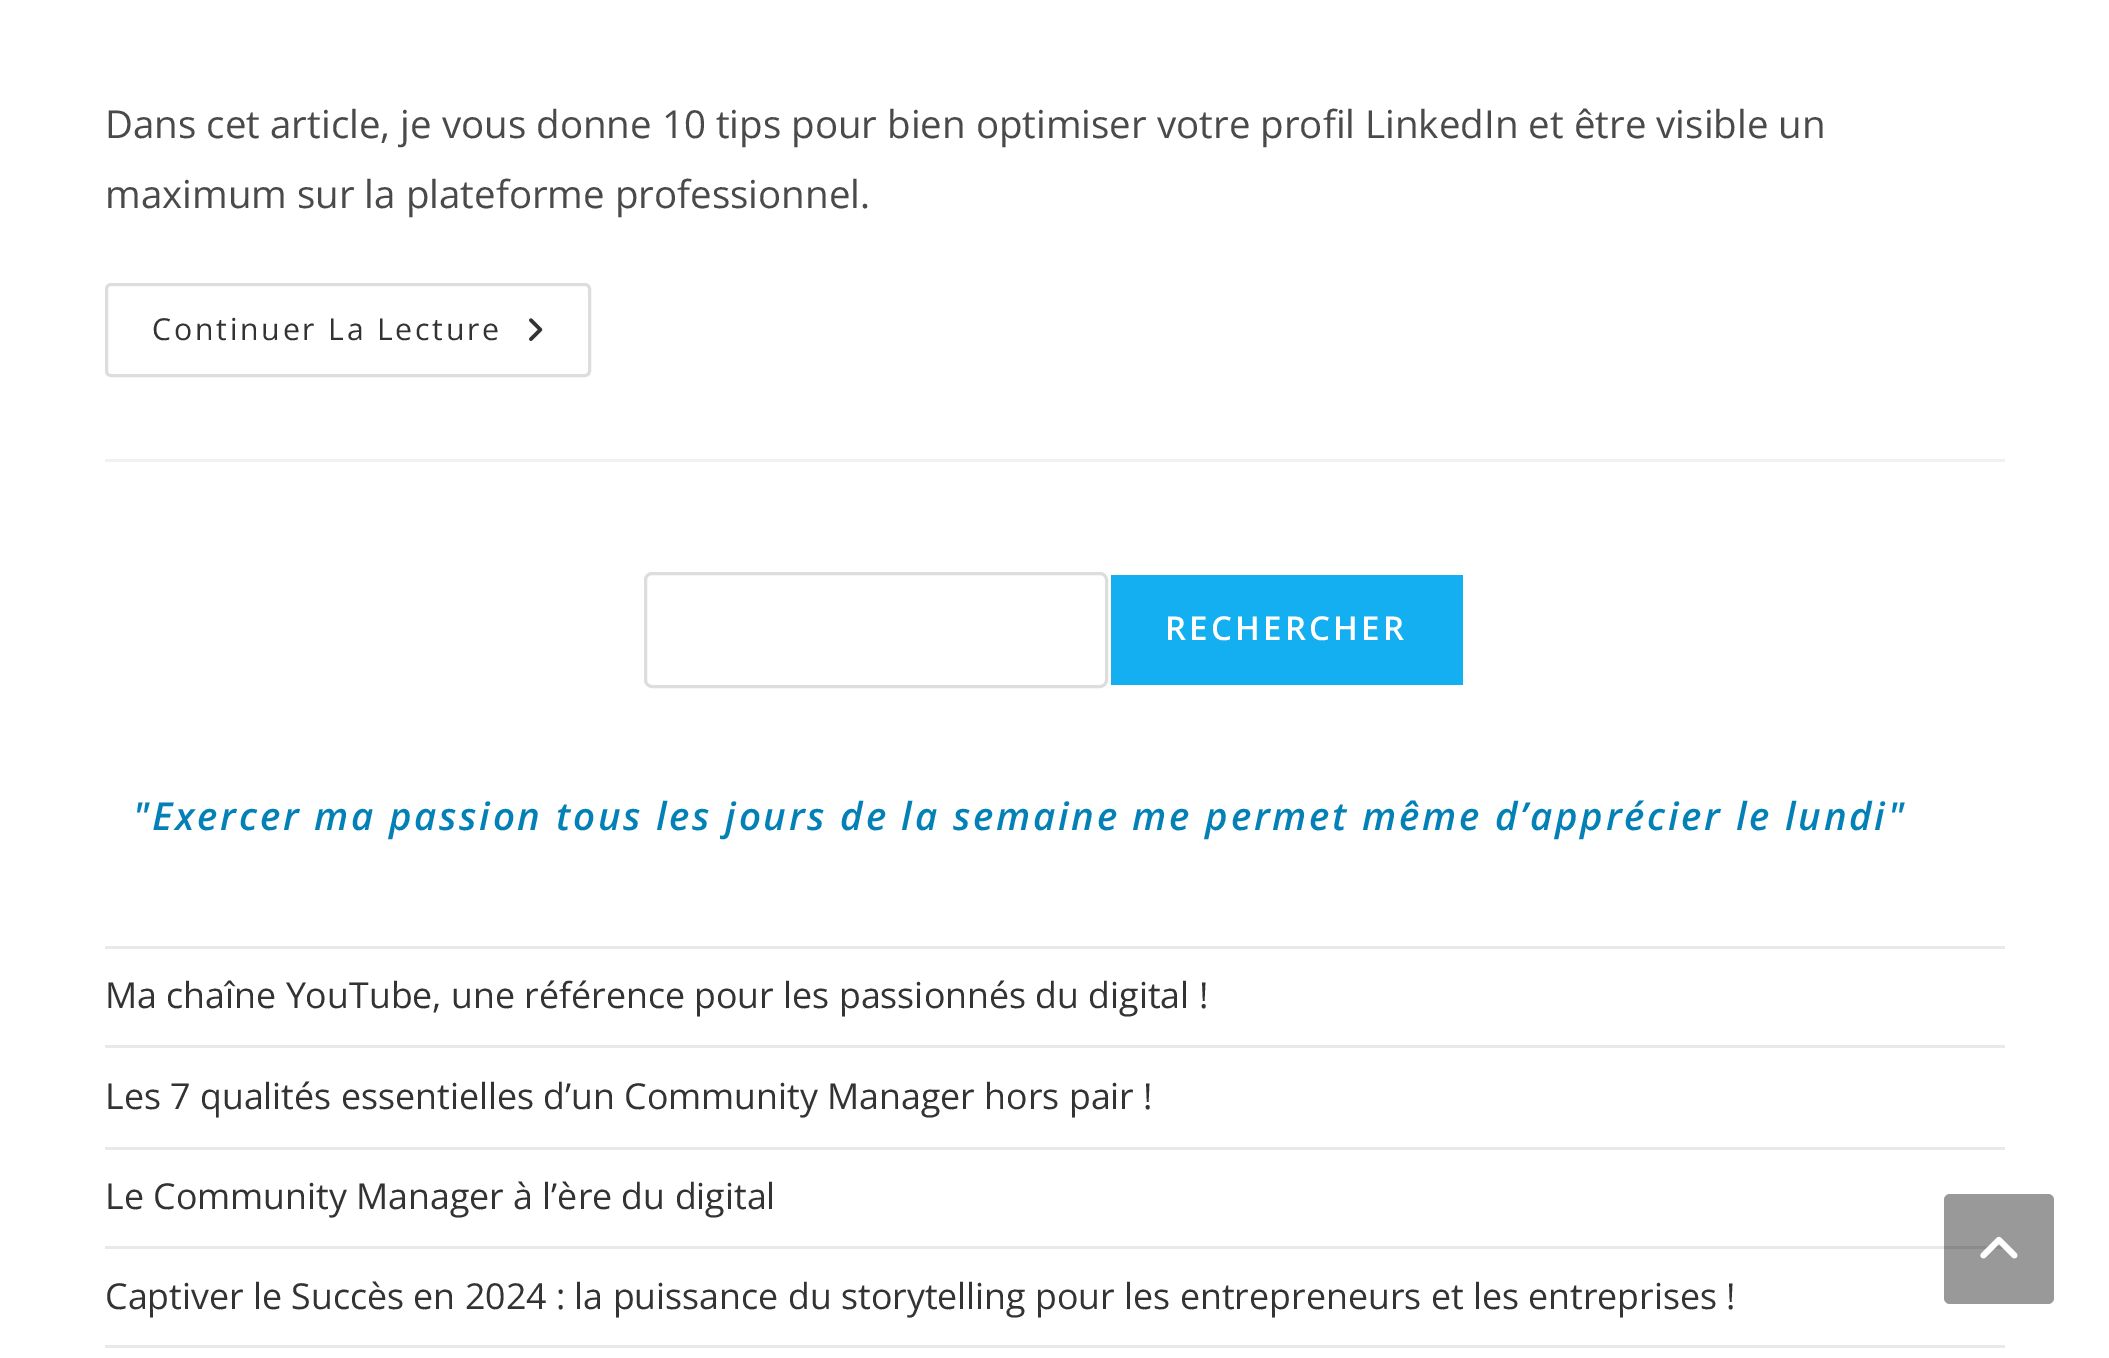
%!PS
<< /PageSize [2109 1358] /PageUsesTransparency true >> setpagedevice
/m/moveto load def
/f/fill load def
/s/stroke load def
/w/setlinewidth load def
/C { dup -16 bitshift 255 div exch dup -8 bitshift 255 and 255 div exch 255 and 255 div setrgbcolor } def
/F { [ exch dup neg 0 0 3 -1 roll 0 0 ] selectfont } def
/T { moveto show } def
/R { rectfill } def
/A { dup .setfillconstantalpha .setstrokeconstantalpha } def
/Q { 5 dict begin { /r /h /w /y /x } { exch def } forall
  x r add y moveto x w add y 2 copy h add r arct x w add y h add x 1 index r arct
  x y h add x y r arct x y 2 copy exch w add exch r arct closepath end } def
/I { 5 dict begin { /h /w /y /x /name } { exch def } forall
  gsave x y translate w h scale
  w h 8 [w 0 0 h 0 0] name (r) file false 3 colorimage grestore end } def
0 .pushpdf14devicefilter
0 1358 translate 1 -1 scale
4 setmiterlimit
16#FFFFFF C
0 0 2109 1358 R
16#F1F1F1 C
105 459 1900 3 R
/OpenSans-Regular 38.5 F
16#4A4A4A C
(Dans cet article, je vous donne 10 tips pour bien optimiser votre profil LinkedIn et être visible un) 105 138 T
(maximum sur la plateforme professionnel.) 105 208 T
16#DDDDDD C
3 w
106.5 284.5 483 91 4.5 Q s
/OpenSans-Regular 30.25 F
16#333333 C
152 340 m 2.75 0 (Continuer La Lecture) ashow
(1.rgb) 529 318 14 23 I
16#DDDDDD C
645.5 573.5 461 113 6.5 Q s
16#13AFF0 C
1111 575 352 110 R
/OpenSans-SemiBold 33 F
16#FFFFFF C
1165 640 m 3.25 0 (RECHERCHER) ashow
/OpenSans-SemiBoldItalic 38.5 F
16#0380B6 C
133 830 m 2.75 0 ("Exercer ma passion tous les jours de la semaine me permet même d’apprécier le lundi") ashow
16#E9E9E9 C
105 946 1900 3 R
105 1045 1900 3 R
/OpenSans-Regular 35.75 F
16#333333 C
(Ma chaîne YouTube, une référence pour les passionnés du digital !) 105 1008 T
16#E9E9E9 C
105 1147 1900 3 R
16#333333 C
(Les 7 qualités essentielles d’un Community Manager hors pair !) 105 1109 T
16#E9E9E9 C
105 1246 1900 3 R
16#333333 C
(Le Community Manager à l’ère du digital) 105 1209 T
16#E9E9E9 C
105 1345 1900 3 R
16#333333 C
(Captiver le Succès en 2024 : la puissance du storytelling pour les entrepreneurs et les entreprises !) 105 1309 T
0.4 A
16#000000 C
1944 1194 110 110 6 Q f
1 A
(2.rgb) 1980 1236 38 23 I
.poppdf14devicefilter showpage
